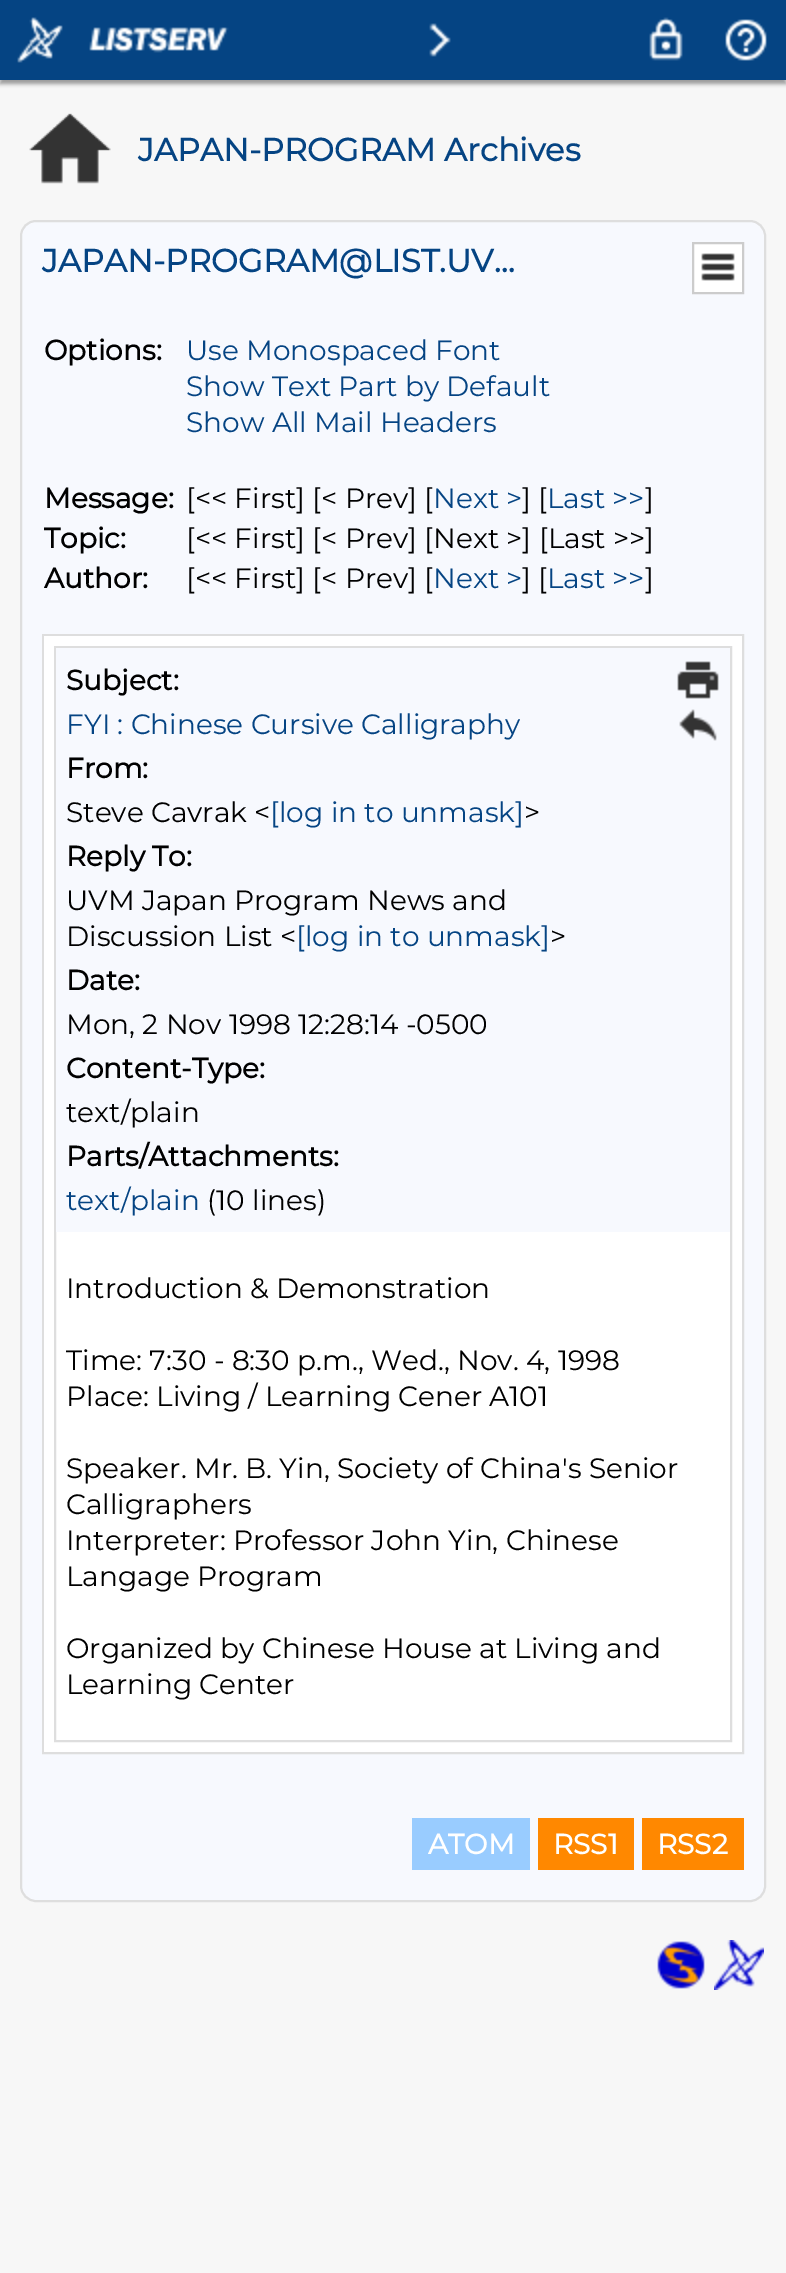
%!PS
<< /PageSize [786 2273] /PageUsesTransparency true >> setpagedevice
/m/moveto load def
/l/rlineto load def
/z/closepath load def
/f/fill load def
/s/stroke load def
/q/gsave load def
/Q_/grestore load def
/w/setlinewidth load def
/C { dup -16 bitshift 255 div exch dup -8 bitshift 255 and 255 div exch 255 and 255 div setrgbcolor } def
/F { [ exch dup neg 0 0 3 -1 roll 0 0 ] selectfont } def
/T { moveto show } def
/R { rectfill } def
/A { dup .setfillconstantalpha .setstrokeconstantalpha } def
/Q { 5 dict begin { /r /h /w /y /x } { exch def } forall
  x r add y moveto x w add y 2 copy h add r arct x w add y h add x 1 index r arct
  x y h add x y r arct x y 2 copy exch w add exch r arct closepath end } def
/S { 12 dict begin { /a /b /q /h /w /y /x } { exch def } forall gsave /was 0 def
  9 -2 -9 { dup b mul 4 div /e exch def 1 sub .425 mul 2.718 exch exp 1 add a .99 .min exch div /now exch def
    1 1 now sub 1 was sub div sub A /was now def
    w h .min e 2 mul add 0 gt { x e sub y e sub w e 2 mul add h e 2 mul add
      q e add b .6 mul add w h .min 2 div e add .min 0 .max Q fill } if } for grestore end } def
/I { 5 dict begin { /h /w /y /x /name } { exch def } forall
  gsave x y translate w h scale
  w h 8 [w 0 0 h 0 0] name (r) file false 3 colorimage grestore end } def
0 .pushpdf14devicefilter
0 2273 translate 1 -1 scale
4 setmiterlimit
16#F7F7F7 C
0 0 786 2273 R
16#999999 C
0 4 786 80 0 2 1 S
16#054483 C
0 0 786 80 R
(1.rgb) 17 17 46 46 I
(2.rgb) 89 27 140 26 I
(3.rgb) 429 23 22 34 I
(4.rgb) 649 17 34 44 I
(5.rgb) 725 19 42 42 I
(6.rgb) 29 113 82 71 I
/Montserrat-Bold 32 F
(JAPAN-PROGRAM Archives) 138 161 T
16#F7F9FE C
21 221 744 1680 15 Q q f Q_
16#DEDEDE C
2 w
s
16#054483 C
(JAPAN-PROGRAM@LIST.UV…) 42 272 T
16#FFFFFF C
693 243 m 50 0 l 0 50 l -50 0 l z q f Q_
16#CCCCCC C
s
(7.rgb) 701 253 34 28 I
/Montserrat-Bold 28 F
16#000000 C
(Options:) 44 360 T
/Montserrat-Thin 28 F
16#054483 C
(Use Monospaced Font) 186 360 T
(Show Text Part by Default) 186 396 T
(Show All Mail Headers) 186 432 T
/Montserrat-Bold 28 F
16#000000 C
(Message:) 44 508 T
/Montserrat-Thin 28 F
([<< First] [< Prev] [) 186 508 T
16#054483 C
(Next >) 433 508 T
16#000000 C
(] [) 522 508 T
16#054483 C
(Last >>) 547 508 T
16#000000 C
(]) 645 508 T
/Montserrat-Bold 28 F
(Topic:) 44 548 T
/Montserrat-Thin 28 F
([<< First] [< Prev] [Next >] [Last >>]) 186 548 T
/Montserrat-Bold 28 F
(Author:) 44 588 T
/Montserrat-Thin 28 F
([<< First] [< Prev] [) 186 588 T
16#054483 C
(Next >) 433 588 T
16#000000 C
(] [) 522 588 T
16#054483 C
(Last >>) 547 588 T
16#000000 C
(]) 645 588 T
16#DEDEDE C
43 635 700 1118 rectstroke
16#FFFFFF C
44 636 698 1116 R
16#DEDEDE C
55 647 676 1094 rectstroke
16#F7F9FE C
56 648 674 584 R
/Montserrat-Bold 28 F
16#000000 C
(Subject:) 66 690 T
/Montserrat-Thin 28 F
16#054483 C
(FYI : Chinese Cursive Calligraphy) 66 734 T
/Montserrat-Bold 28 F
16#000000 C
(From:) 66 778 T
/Montserrat-Thin 28 F
(Steve Cavrak <) 66 822 T
16#054483 C
([log in to unmask]) 270 822 T
16#000000 C
(>) 524 822 T
/Montserrat-Bold 28 F
(Reply To:) 66 866 T
/Montserrat-Thin 28 F
(UVM Japan Program News and) 66 910 T
(Discussion List <) 66 946 T
16#054483 C
([log in to unmask]) 296 946 T
16#000000 C
(>) 550 946 T
/Montserrat-Bold 28 F
(Date:) 66 990 T
/Montserrat-Thin 28 F
(Mon, 2 Nov 1998 12:28:14 -0500) 66 1034 T
/Montserrat-Bold 28 F
(Content-Type:) 66 1078 T
/Montserrat-Thin 28 F
(text/plain) 66 1122 T
/Montserrat-Bold 28 F
(Parts/Attachments:) 66 1166 T
/Montserrat-Thin 28 F
16#054483 C
(text/plain) 66 1210 T
16#000000 C
(\(10 lines\)) 207 1210 T
(8.rgb) 677 661 42 38 I
(9.rgb) 679 709 38 32 I
(Introduction & Demonstration) 66 1298 T
(Time: 7:30 - 8:30 p.m., Wed., Nov. 4, 1998) 66 1370 T
(Place: Living / Learning Cener A101) 66 1406 T
(Speaker. Mr. B. Yin, Society of China's Senior) 66 1478 T
(Calligraphers) 66 1514 T
(Interpreter: Professor John Yin, Chinese) 66 1550 T
(Langage Program) 66 1586 T
(Organized by Chinese House at Living and) 66 1658 T
(Learning Center) 66 1694 T
16#99CCFF C
412 1818 118 52 R
/Montserrat-Bold 28 F
16#FFFFFF C
(ATOM) 428 1854 T
16#FF8800 C
538 1818 96 52 R
16#FFFFFF C
(RSS1) 553 1854 T
16#FF8800 C
642 1818 102 52 R
16#FFFFFF C
(RSS2) 657 1854 T
(10.rgb) 657 1941 48 48 I
(11.rgb) 714 1940 50 50 I
.poppdf14devicefilter showpage
